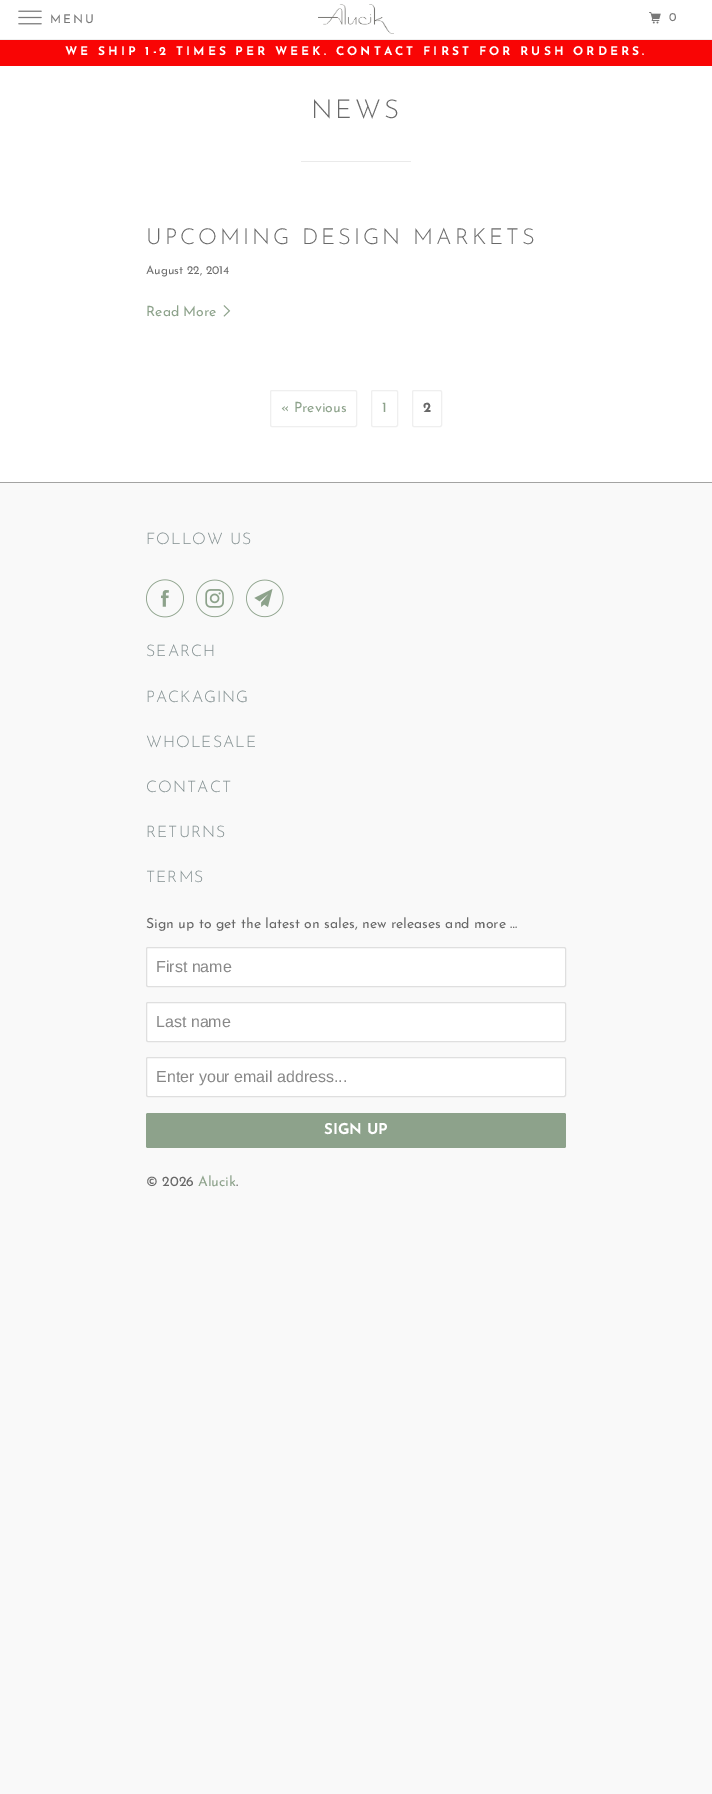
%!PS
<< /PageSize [712 1794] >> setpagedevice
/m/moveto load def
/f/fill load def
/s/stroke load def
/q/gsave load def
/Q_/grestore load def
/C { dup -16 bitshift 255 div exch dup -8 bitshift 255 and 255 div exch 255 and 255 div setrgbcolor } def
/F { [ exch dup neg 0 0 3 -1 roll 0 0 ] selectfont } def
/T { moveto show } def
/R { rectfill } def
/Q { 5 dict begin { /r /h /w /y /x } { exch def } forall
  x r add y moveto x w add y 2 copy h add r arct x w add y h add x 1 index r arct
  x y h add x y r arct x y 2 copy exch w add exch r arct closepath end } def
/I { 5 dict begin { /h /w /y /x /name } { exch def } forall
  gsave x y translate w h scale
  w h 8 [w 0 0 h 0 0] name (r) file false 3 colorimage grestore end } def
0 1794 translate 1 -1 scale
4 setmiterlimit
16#F9F9F9 C
0 0 712 1794 R
16#FFFFFF C
0 0 712 482 R
16#F0F0F0 C
0 39 712 1 R
(1.rgb) 18 10 24 15 I
/JosefinSans-Regular 12 F
16#797979 C
50 23 m 2 0 (MENU) ashow
(2.rgb) 318 4 76 30 I
(3.rgb) 649 12 12 12 I
669 21 m 2 0 (0) ashow
16#F90505 C
0 40 712 26 R
/JosefinSans-Bold 12 F
16#FFFFFF C
65 55 m 3 0 (WE SHIP 1-2 TIMES PER WEEK. CONTACT FIRST FOR RUSH ORDERS.) ashow
/JosefinSans-Light 26 F
16#686868 C
311 118 m 3 0 (NEWS) ashow
16#EAEAEA C
301 161 110 1 R
/JosefinSans-Light 22 F
16#686868 C
146 244 m 3 0 (UPCOMING DESIGN MARKETS) ashow
/JosefinSans-Regular 11.75 F
16#6E6E6E C
(August 22, 2014) 146 274 T
/JosefinSans-Regular 14 F
16#8DA28B C
(Read More) 146 316 T
(4.rgb) 223 305 8 12 I
16#EFEFEF C
270.5 390.5 86 36 1.5 Q s
16#8DA28B C
(« Previous) 281 412 T
16#EFEFEF C
371.5 390.5 26 36 1.5 Q s
16#8DA28B C
(1) 382 412 T
16#EFEFEF C
412.5 390.5 29 36 1.5 Q s
/JosefinSans-Bold 14 F
16#686868 C
(2) 423 412 T
16#A3A3A2 C
0 482 712 1 R
/JosefinSans-Light 16 F
16#7F8C8D C
146 544 m 1 0 (FOLLOW US) ashow
(5.rgb) 146 579 38 39 I
(6.rgb) 196 579 38 39 I
(7.rgb) 246 579 38 39 I
146 656 m 1 0 (SEARCH) ashow
146 702 m 1 0 (PACKAGING) ashow
146 747 m 1 0 (WHOLESALE) ashow
146 792 m 1 0 (CONTACT) ashow
146 837 m 1 0 (RETURNS) ashow
146 882 m 1 0 (TERMS) ashow
/JosefinSans-Regular 14 F
16#686868 C
(Sign up to get the latest on sales, new releases and more …) 146 928 T
16#FFFFFF C
146.5 947.5 419 39 1.5 Q q f Q_
16#DFDFDF C
s
/LiberationSans-Regular 16 F
16#888888 C
(First name) 156 972 T
16#FFFFFF C
146.5 1002.5 419 39 1.5 Q q f Q_
16#DFDFDF C
s
16#888888 C
(Last name) 156 1027 T
16#FFFFFF C
146.5 1057.5 419 39 1.5 Q q f Q_
16#DFDFDF C
s
16#888888 C
(Enter your email address...) 156 1082 T
16#8DA28B C
146 1113 420 35 2 Q f
/JosefinSans-Bold 15 F
16#FFFFFF C
(SIGN UP) 324 1134 T
/JosefinSans-Regular 14 F
16#686868 C
(© 2026) 146 1186 T
16#8DA28B C
(Alucik) 198 1186 T
16#686868 C
(.) 236 1186 T
showpage
